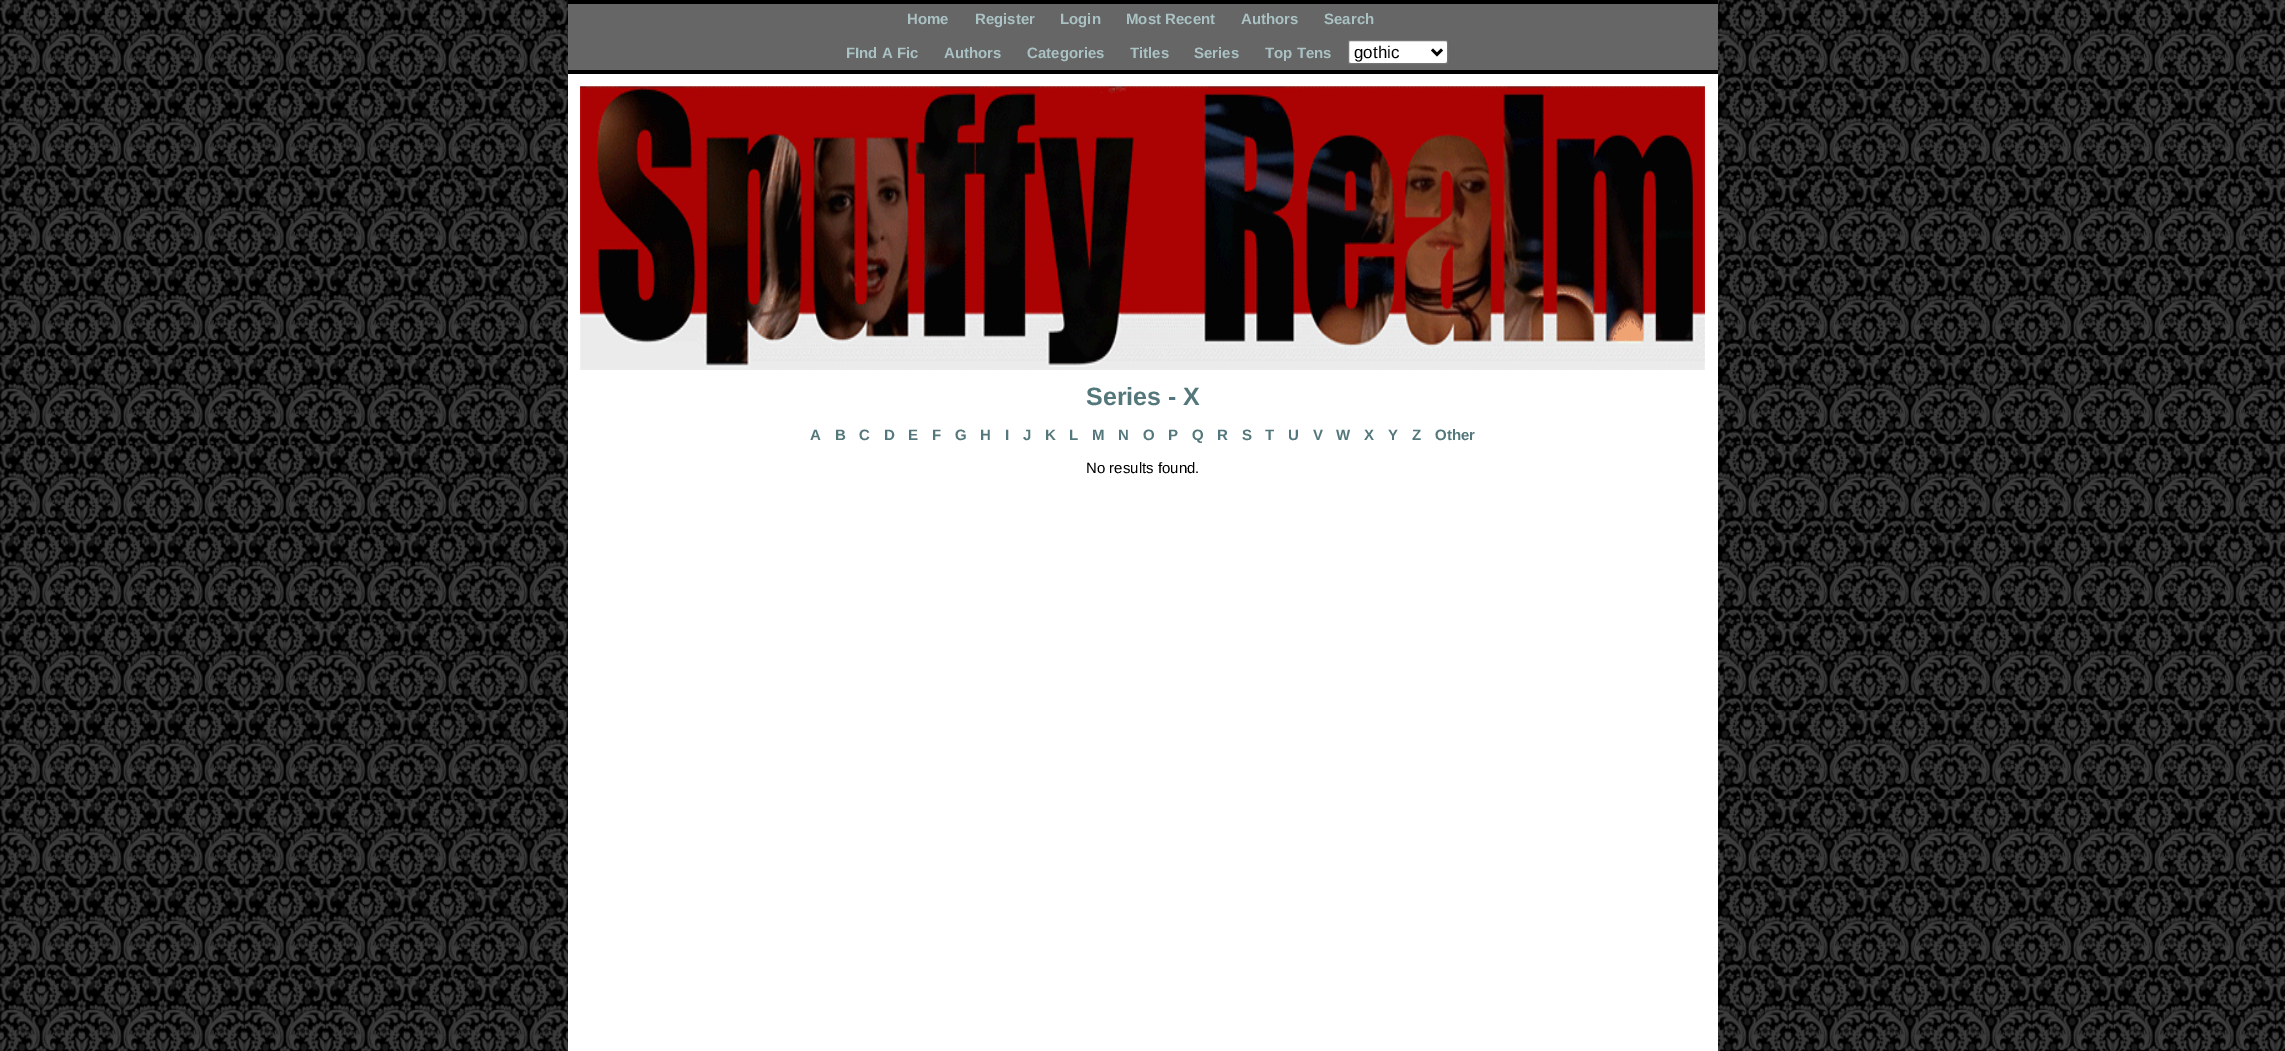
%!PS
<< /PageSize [2285 1051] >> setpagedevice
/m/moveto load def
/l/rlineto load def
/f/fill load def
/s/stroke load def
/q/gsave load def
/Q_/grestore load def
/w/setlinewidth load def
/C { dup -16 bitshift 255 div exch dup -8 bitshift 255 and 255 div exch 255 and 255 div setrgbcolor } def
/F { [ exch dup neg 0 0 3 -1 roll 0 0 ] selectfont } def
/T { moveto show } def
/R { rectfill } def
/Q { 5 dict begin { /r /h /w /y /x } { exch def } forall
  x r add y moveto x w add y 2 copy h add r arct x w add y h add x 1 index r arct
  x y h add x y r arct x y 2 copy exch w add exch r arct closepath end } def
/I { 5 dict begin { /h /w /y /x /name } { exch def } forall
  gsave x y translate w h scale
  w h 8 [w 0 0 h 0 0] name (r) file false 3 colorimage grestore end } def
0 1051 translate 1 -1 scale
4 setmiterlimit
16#FFFFFF C
0 0 2285 1051 R
(1.rgb) 0 0 2285 1051 I
568 74 1150 977 R
16#666666 C
568 4 1150 66 R
16#000000 C
568 0 1150 4 R
/LiberationSans-Bold 15 F
16#ABC2C4 C
(Home) 907 24 T
(Register) 975 24 T
(Login) 1060 24 T
(Most Recent) 1126 24 T
(Authors) 1241 24 T
(Search) 1324 24 T
16#000000 C
568 70 1150 4 R
16#ABC2C4 C
(FInd A Fic) 846 58 T
(Authors) 944 58 T
(Categories) 1027 58 T
(Titles) 1130 58 T
(Series) 1194 58 T
(Top Tens) 1265 58 T
16#FFFFFF C
1348.5 40.5 99 23 2 Q q f Q_
16#767676 C
s
16#000000 C
2.5 w
1432 49.5 m 5 5 l 5 -5 l s
/LiberationSans-Regular 17 F
(gothic) 1354 58 T
(2.rgb) 580 86 1125 284 I
/LiberationSans-Bold 25 F
16#53777A C
(Series - X) 1086 405 T
/LiberationSans-Bold 15 F
(A) 810 440 T
(B) 835 440 T
(C) 859 440 T
(D) 884 440 T
(E) 908 440 T
(F) 932 440 T
(G) 955 440 T
(H) 980 440 T
(I) 1005 440 T
(J) 1023 440 T
(K) 1045 440 T
(L) 1069 440 T
(M) 1092 440 T
(N) 1118 440 T
(O) 1143 440 T
(P) 1168 440 T
(Q) 1192 440 T
(R) 1217 440 T
(S) 1242 440 T
(T) 1265 440 T
(U) 1288 440 T
(V) 1313 440 T
(W) 1336 440 T
(X) 1364 440 T
(Y) 1388 440 T
(Z) 1412 440 T
(Other) 1435 440 T
/LiberationSans-Regular 15 F
16#000000 C
(No results found.) 1086 473 T
showpage
